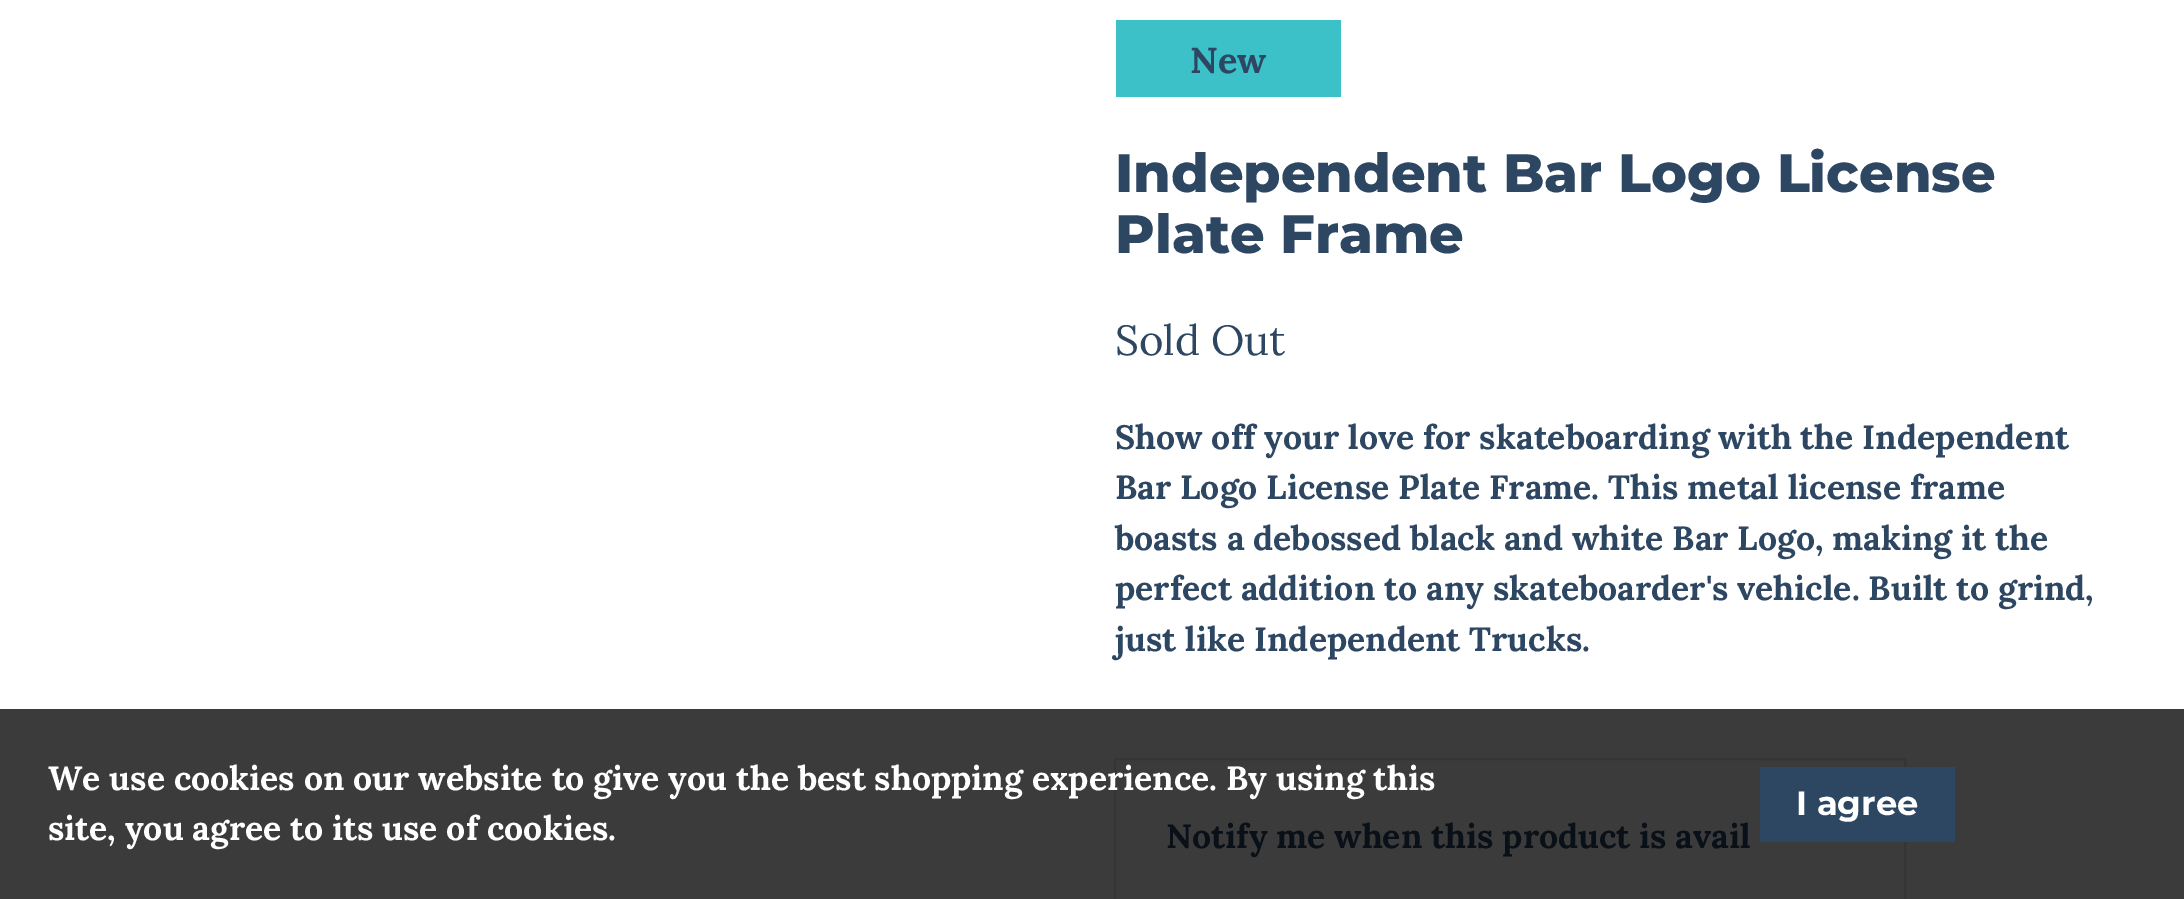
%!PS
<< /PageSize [2184 899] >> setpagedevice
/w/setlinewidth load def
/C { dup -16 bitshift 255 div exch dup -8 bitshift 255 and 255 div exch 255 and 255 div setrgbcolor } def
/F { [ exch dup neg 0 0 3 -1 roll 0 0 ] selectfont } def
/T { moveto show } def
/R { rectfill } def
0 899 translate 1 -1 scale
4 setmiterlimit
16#FFFFFF C
0 0 2184 899 R
16#3B3B3B C
0 709 2184 190 R
16#3CC1C8 C
1116 20 225 77 R
/Lora-Bold 36 F
16#2D4763 C
(New) 1190 73 T
/Montserrat-ExtraBold 54 F
(Independent Bar Logo License) 1115 192 T
(Plate Frame) 1115 253 T
/Lora-Regular 42 F
(Sold Out) 1115 355 T
/Lora-Bold 33.75 F
(Show off your love for skateboarding with the Independent) 1115 449 T
(Bar Logo License Plate Frame. This metal license frame) 1115 499 T
(boasts a debossed black and white Bar Logo, making it the) 1115 550 T
(perfect addition to any skateboarder's vehicle. Built to grind,) 1115 600 T
(just like Independent Trucks.) 1115 651 T
16#353535 C
2 w
1115 759 790 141 rectstroke
16#0A1017 C
(Notify me when this product is avail) 1166 848 T
16#FFFFFF C
(We use cookies on our website to give you the best shopping experience. By using this) 48 790 T
(site, you agree to its use of cookies.) 48 840 T
16#2D4763 C
1760 767 195 75 R
/Montserrat-Bold 33.75 F
16#FFFFFF C
(I agree) 1796 815 T
showpage
